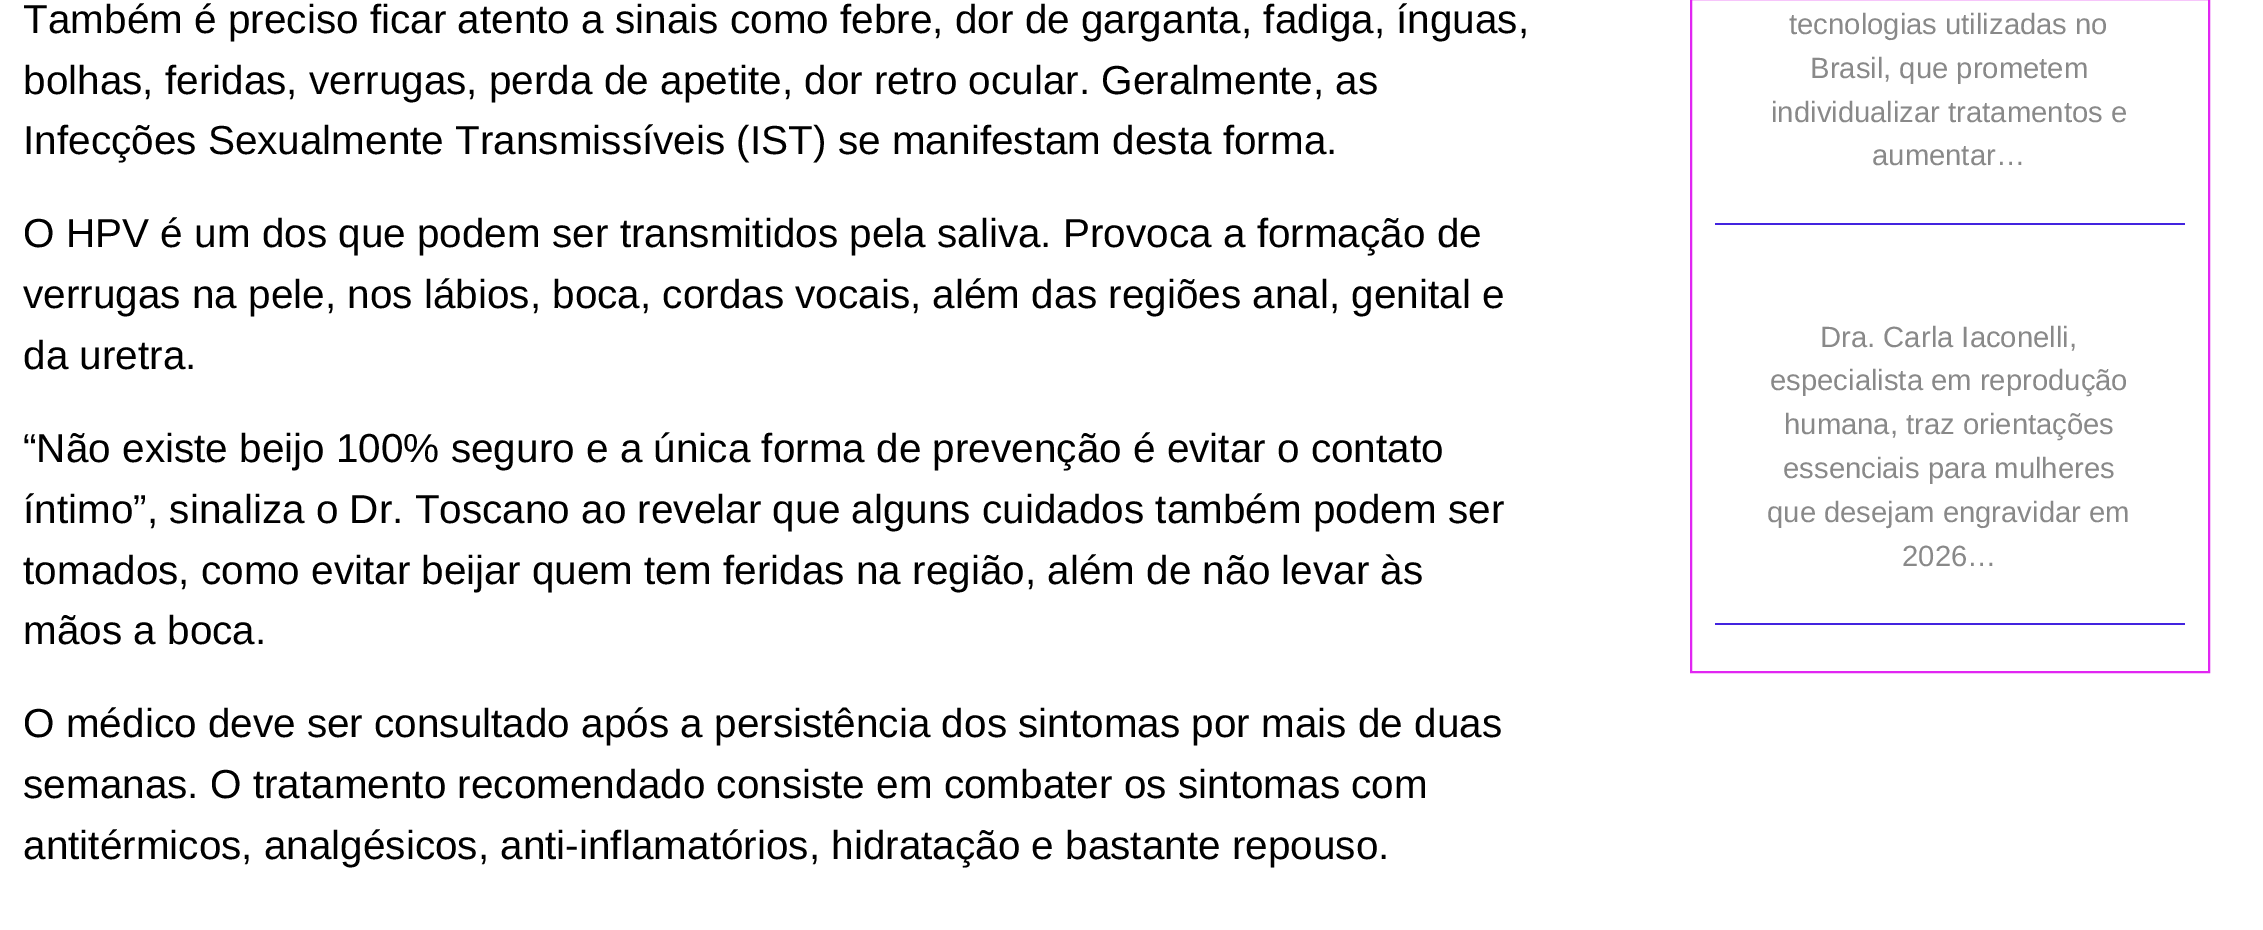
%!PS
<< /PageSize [2263 930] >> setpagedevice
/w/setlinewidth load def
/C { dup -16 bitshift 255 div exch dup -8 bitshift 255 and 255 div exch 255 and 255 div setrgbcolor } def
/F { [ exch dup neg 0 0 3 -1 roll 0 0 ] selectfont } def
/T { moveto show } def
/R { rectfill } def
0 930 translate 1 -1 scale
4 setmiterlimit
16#FFFFFF C
0 0 2263 930 R
/LiberationSans-Regular 40.5 F
16#000000 C
(Também é preciso ficar atento a sinais como febre, dor de garganta, fadiga, ínguas,) 23 33 T
(bolhas, feridas, verrugas, perda de apetite, dor retro ocular. Geralmente, as) 23 94 T
(Infecções Sexualmente Transmissíveis \(IST\) se manifestam desta forma.) 23 154 T
(O HPV é um dos que podem ser transmitidos pela saliva. Provoca a formação de) 23 247 T
(verrugas na pele, nos lábios, boca, cordas vocais, além das regiões anal, genital e) 23 308 T
(da uretra.) 23 369 T
(“Não existe beijo 100% seguro e a única forma de prevenção é evitar o contato) 23 462 T
(íntimo”, sinaliza o Dr. Toscano ao revelar que alguns cuidados também podem ser) 23 523 T
(tomados, como evitar beijar quem tem feridas na região, além de não levar às) 23 584 T
(mãos a boca.) 23 644 T
(O médico deve ser consultado após a persistência dos sintomas por mais de duas) 23 737 T
(semanas. O tratamento recomendado consiste em combater os sintomas com) 23 798 T
(antitérmicos, analgésicos, anti-inflamatórios, hidratação e bastante repouso.) 23 859 T
16#E126F2 C
2 w
1691 -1 518 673 rectstroke
16#4324DF C
1715 223 470 2 R
/LiberationSans-Regular 29.25 F
16#898989 C
(tecnologias utilizadas no) 1789 34 T
(Brasil, que prometem) 1810 78 T
(individualizar tratamentos e) 1771 122 T
(aumentar…) 1872 165 T
16#4324DF C
1715 623 470 2 R
16#898989 C
(Dra. Carla Iaconelli,) 1820 347 T
(especialista em reprodução) 1770 390 T
(humana, traz orientações) 1784 434 T
(essenciais para mulheres) 1783 478 T
(que desejam engravidar em) 1767 522 T
(2026…) 1902 566 T
showpage
